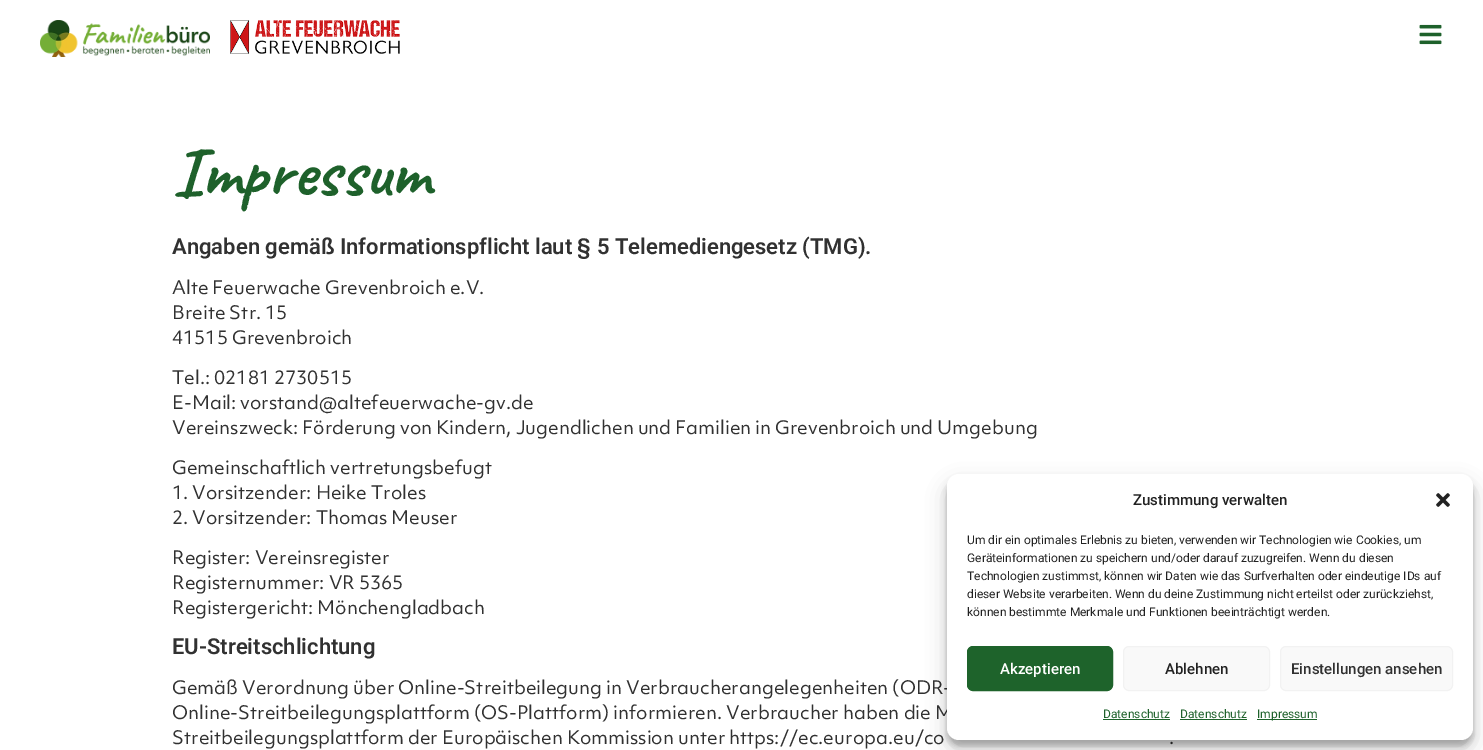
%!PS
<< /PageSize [1483 750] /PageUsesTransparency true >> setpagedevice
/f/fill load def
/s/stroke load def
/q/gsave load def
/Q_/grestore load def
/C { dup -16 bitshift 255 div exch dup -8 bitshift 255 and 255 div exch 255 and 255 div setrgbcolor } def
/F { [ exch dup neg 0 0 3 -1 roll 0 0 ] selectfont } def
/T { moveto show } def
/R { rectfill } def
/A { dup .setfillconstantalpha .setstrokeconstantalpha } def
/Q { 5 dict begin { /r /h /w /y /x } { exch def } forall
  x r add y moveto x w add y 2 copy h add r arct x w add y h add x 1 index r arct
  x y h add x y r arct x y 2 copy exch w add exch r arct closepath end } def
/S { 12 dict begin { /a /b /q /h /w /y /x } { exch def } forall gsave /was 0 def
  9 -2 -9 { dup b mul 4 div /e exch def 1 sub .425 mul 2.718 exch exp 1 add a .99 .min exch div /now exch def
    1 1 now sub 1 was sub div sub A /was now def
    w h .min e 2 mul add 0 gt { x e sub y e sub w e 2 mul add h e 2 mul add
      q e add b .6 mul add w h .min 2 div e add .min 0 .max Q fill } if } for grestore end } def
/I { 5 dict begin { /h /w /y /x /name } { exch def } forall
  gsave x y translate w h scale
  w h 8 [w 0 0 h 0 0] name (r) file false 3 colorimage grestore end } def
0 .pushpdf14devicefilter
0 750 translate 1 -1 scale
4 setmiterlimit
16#FFFFFF C
0 0 1483 750 R
(1.rgb) 40 20 170 37 I
(2.rgb) 230 20 170 34 I
(3.rgb) 1419 24 23 21 I
/Caveat-Bold 70 F
16#1E612B C
(Impressum) 172 195 T
/Roboto-SemiBold 22 F
16#313131 C
(Angaben gemäß Informationspflicht laut § 5 Telemediengesetz \(TMG\).) 172 254 T
/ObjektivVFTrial-Regular 18 F
(Alte Feuerwache Grevenbroich e.V.) 172 294 T
(Breite Str. 15) 172 319 T
(41515 Grevenbroich) 172 344 T
(Tel.: 02181 2730515) 172 384 T
(E-Mail: vorstand@altefeuerwache-gv.de) 172 409 T
(Vereinszweck: Förderung von Kindern, Jugendlichen und Familien in Grevenbroich und Umgebung) 172 434 T
(Gemeinschaftlich vertretungsbefugt) 172 474 T
(1. Vorsitzender: Heike Troles) 172 499 T
(2. Vorsitzender: Thomas Meuser) 172 524 T
(Register: Vereinsregister) 172 564 T
(Registernummer: VR 5365) 172 589 T
(Registergericht: Mönchengladbach) 172 614 T
/Roboto-SemiBold 22 F
(EU-Streitschlichtung) 172 654 T
/ObjektivVFTrial-Regular 18 F
(Gemäß Verordnung über Online-Streitbeilegung in Verbraucherangelegenheiten \(ODR-) 172 694 T
(Online-Streitbeilegungsplattform \(OS-Plattform\) informieren. Verbraucher haben die M) 172 719 T
(Streitbeilegungsplattform der Europäischen Kommission unter https://ec.europa.eu/co) 172 744 T
(.) 1169 744 T
16#000000 C
947 480 526 266 12 3 .23 S
947 484 526 266 12 10 .19 S
16#FFFFFF C
947 474 526 266 12 Q f
/Roboto-Medium 15 F
16#222222 C
(Zustimmung verwalten) 1133 505 T
(4.rgb) 1436 493 14 14 I
/Roboto-Regular 12 F
(Um dir ein optimales Erlebnis zu bieten, verwenden wir Technologien wie Cookies, um) 967 544 T
(Geräteinformationen zu speichern und/oder darauf zuzugreifen. Wenn du diesen) 967 562 T
(Technologien zustimmst, können wir Daten wie das Surfverhalten oder eindeutige IDs auf) 967 580 T
(dieser Website verarbeiten. Wenn du deine Zustimmung nicht erteilst oder zurückziehst,) 967 598 T
(können bestimmte Merkmale und Funktionen beeinträchtigt werden.) 967 616 T
16#1E632B C
967.5 646.5 145 44 5.5 Q q f Q_
s
/Roboto-Medium 15 F
16#FFFFFF C
(Akzeptieren) 1000 674 T
16#F9F9F9 C
1123.5 646.5 146 44 5.5 Q q f Q_
16#F2F2F2 C
s
16#222222 C
(Ablehnen) 1165 674 T
16#F9F9F9 C
1280.5 646.5 172 44 5.5 Q q f Q_
16#F2F2F2 C
s
16#313131 C
(Einstellungen ansehen) 1291 674 T
/Roboto-Regular 12 F
16#1E612B C
(Datenschutz) 1103 718 T
16#1E632B C
1103 719 67 1 R
16#1E612B C
(Datenschutz) 1180 718 T
16#1E632B C
1180 719 67 1 R
1257 719 60 1 R
16#1E612B C
(Impressum) 1257 718 T
.poppdf14devicefilter showpage
